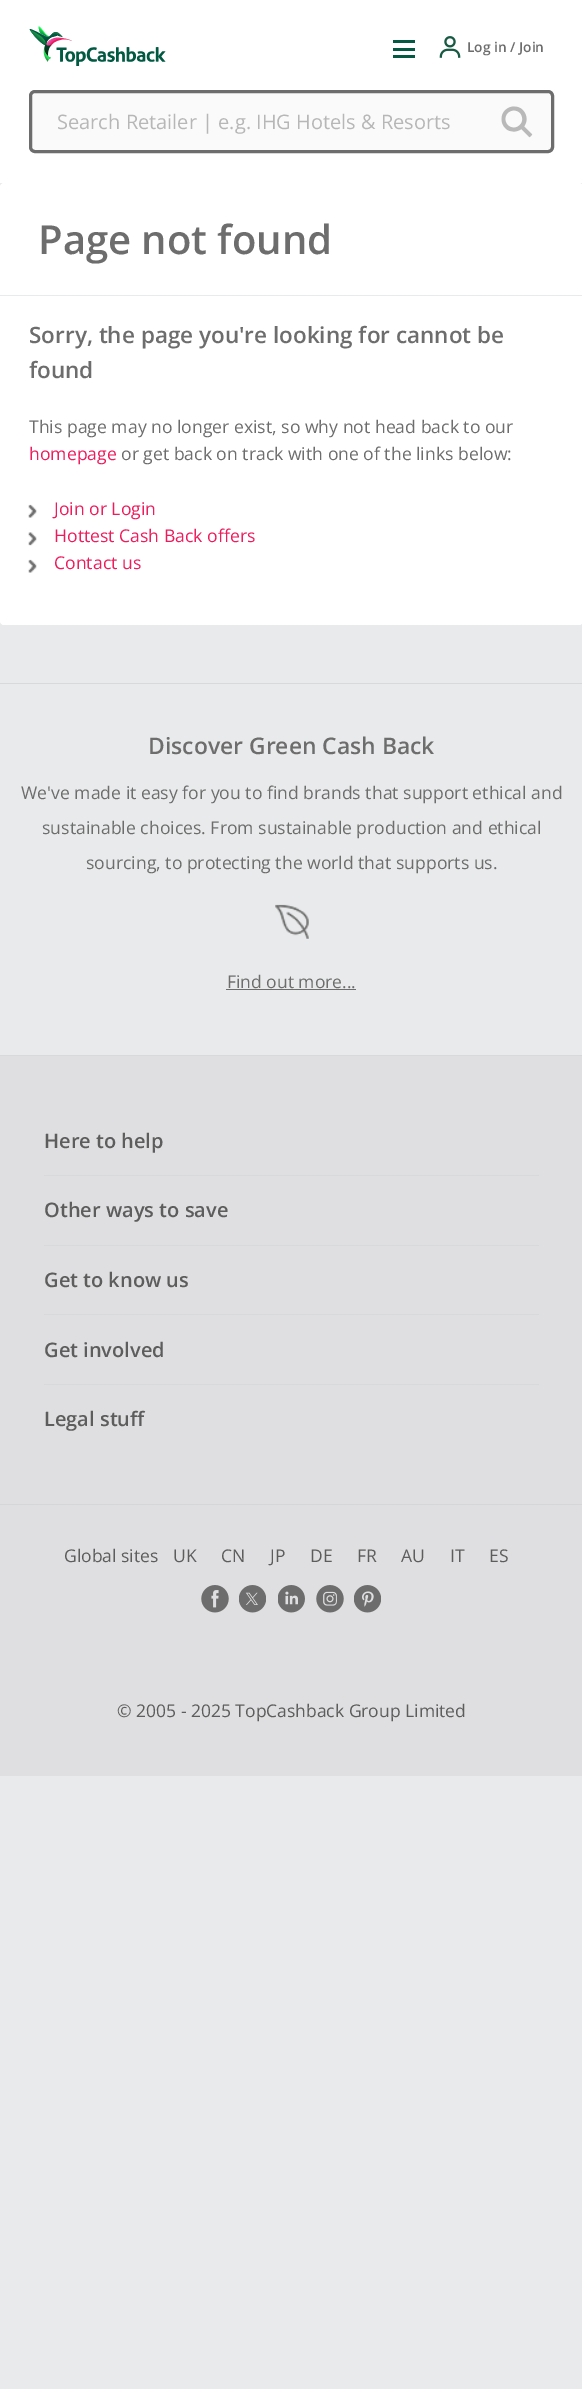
%!PS
<< /PageSize [582 2389] >> setpagedevice
/f/fill load def
/s/stroke load def
/w/setlinewidth load def
/C { dup -16 bitshift 255 div exch dup -8 bitshift 255 and 255 div exch 255 and 255 div setrgbcolor } def
/F { [ exch dup neg 0 0 3 -1 roll 0 0 ] selectfont } def
/T { moveto show } def
/R { rectfill } def
/Q { 5 dict begin { /r /h /w /y /x } { exch def } forall
  x r add y moveto x w add y 2 copy h add r arct x w add y h add x 1 index r arct
  x y h add x y r arct x y 2 copy exch w add exch r arct closepath end } def
/I { 5 dict begin { /h /w /y /x /name } { exch def } forall
  gsave x y translate w h scale
  w h 8 [w 0 0 h 0 0] name (r) file false 3 colorimage grestore end } def
0 2389 translate 1 -1 scale
4 setmiterlimit
16#E9EAEB C
0 0 582 2389 R
16#FFFFFF C
0 0 582 183 R
(1.rgb) 29 26 137 40 I
16#055942 C
393 40 22 3 R
393 48 22 3 R
393 55 22 3 R
(2.rgb) 439 36 22 22 I
/OpenSans-SemiBold 13.75 F
16#6D6D6D C
(Log in / Join) 467 52 T
16#FAFAFA C
29 90 525 63 6 Q f
(3.rgb) 501 106 32 32 I
16#6D6D6D C
3 w
30.5 91.5 522 60 4.5 Q s
/OpenSans-Regular 20 F
16#B7B7B7 C
(Search Retailer | e.g. IHG Hotels & Resorts) 57 129 T
16#FFFFFF C
0 183 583 442 4 Q f
16#E9EAEB C
0 295 582 1 R
/OpenSans-SemiBold 40 F
16#6D6D6D C
(Page not found) 38 254 T
/OpenSans-SemiBold 22.5 F
(Sorry, the page you're looking for cannot be) 29 343 T
(found) 29 378 T
/OpenSans-Regular 17.6 F
(This page may no longer exist, so why not head back to our) 29 433 T
16#ED1C5C C
(homepage) 29 460 T
16#6D6D6D C
(or get back on track with one of the links below:) 121 460 T
(4.rgb) 28 504 9 14 I
16#ED1C5C C
(Join or Login) 54 515 T
(5.rgb) 28 532 9 14 I
(Hottest Cash Back offers) 54 542 T
(4.rgb) 28 559 9 14 I
(Contact us) 54 569 T
16#D8D9DB C
0 683 582 1 R
/OpenSans-SemiBold 22.9 F
16#6D6D6D C
(Discover Green Cash Back) 148 754 T
/OpenSans-Regular 17.6 F
(We've made it easy for you to find brands that support ethical and) 21 799 T
(sustainable choices. From sustainable production and ethical) 42 834 T
(sourcing, to protecting the world that supports us.) 86 869 T
(6.rgb) 275 904 34 35 I
/OpenSans-Regular 17.5 F
(Find out more...) 227 988 T
226 989 130 1 R
16#DFDFE1 C
0 1056 582 448 R
16#D8D9DB C
0 1055 582 1 R
/OpenSans-SemiBold 20 F
16#5D5D5D C
(Here to help) 44 1148 T
16#D8D9DB C
44 1175 495 1 R
16#5D5D5D C
(Other ways to save) 44 1217 T
16#D8D9DB C
44 1245 495 1 R
16#5D5D5D C
(Get to know us) 44 1287 T
16#D8D9DB C
44 1314 495 1 R
16#5D5D5D C
(Get involved) 44 1357 T
16#D8D9DB C
44 1384 495 1 R
16#5D5D5D C
(Legal stuff) 44 1426 T
16#DFDFE1 C
0 1505 582 271 R
16#D5D6D8 C
0 1504 582 1 R
/OpenSans-Regular 17.5 F
16#5D5D5D C
(Global sites) 64 1562 T
(UK) 173 1562 T
(CN) 221 1562 T
(JP) 270 1562 T
(DE) 310 1562 T
(FR) 357 1562 T
(AU) 401 1562 T
(IT) 450 1562 T
(ES) 489 1562 T
(7.rgb) 201 1585 28 28 I
(8.rgb) 239 1585 27 28 I
(9.rgb) 278 1585 27 28 I
(10.rgb) 316 1585 28 28 I
(11.rgb) 354 1585 27 28 I
(© 2005 - 2025 TopCashback Group Limited) 117 1717 T
showpage
